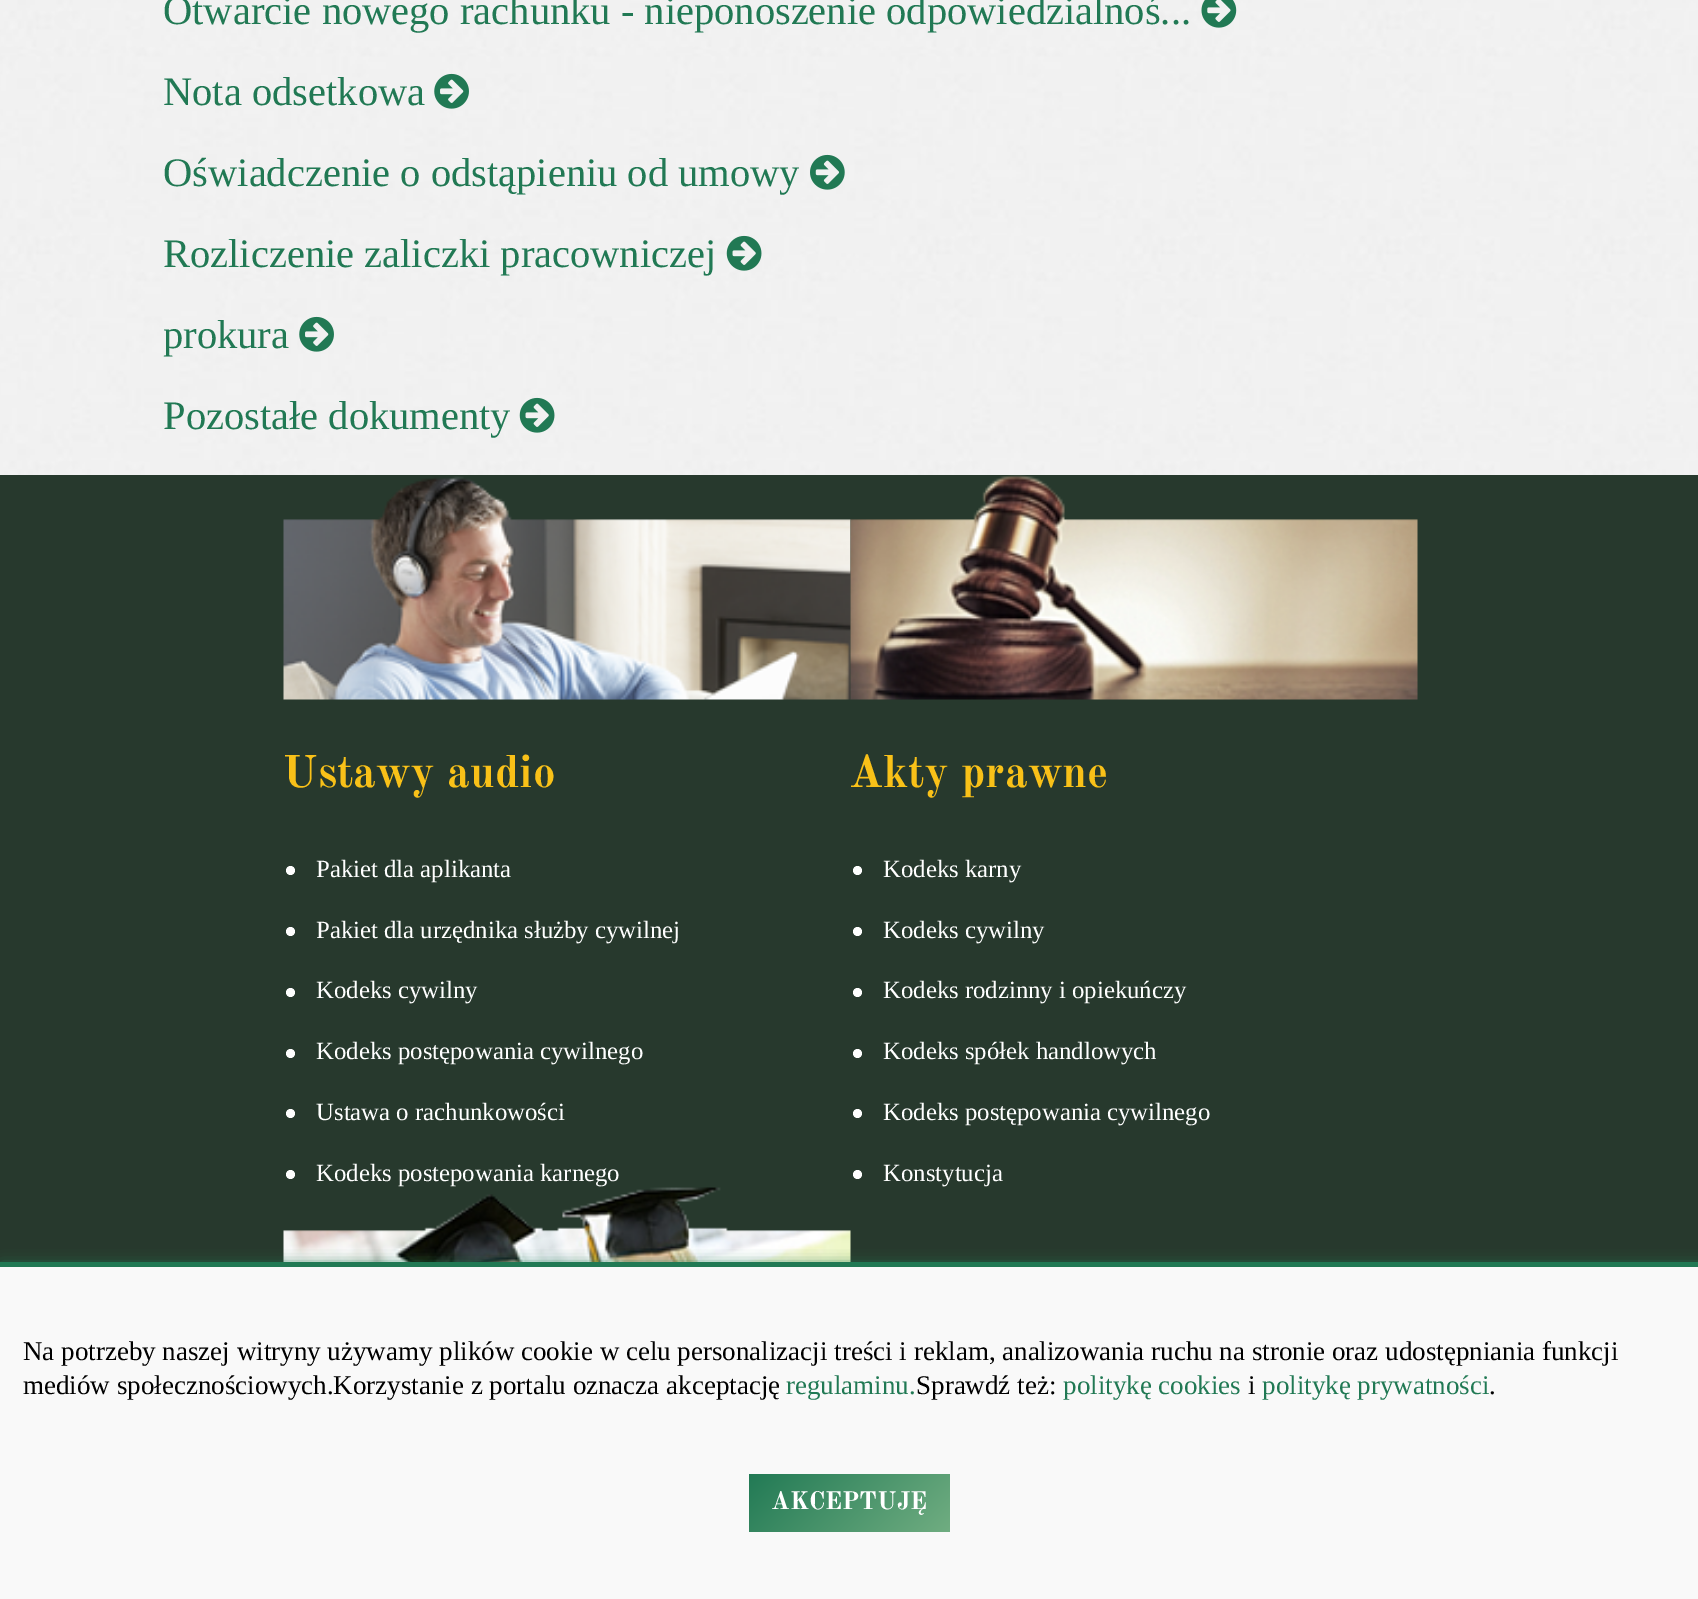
%!PS
<< /PageSize [1698 1599] /PageUsesTransparency true >> setpagedevice
/m/moveto load def
/l/rlineto load def
/z/closepath load def
/f/fill load def
/q/gsave load def
/Q_/grestore load def
/C { dup -16 bitshift 255 div exch dup -8 bitshift 255 and 255 div exch 255 and 255 div setrgbcolor } def
/F { [ exch dup neg 0 0 3 -1 roll 0 0 ] selectfont } def
/T { moveto show } def
/R { rectfill } def
/A { dup .setfillconstantalpha .setstrokeconstantalpha } def
/O { newpath 0 360 arc closepath } def
/Q { 5 dict begin { /r /h /w /y /x } { exch def } forall
  x r add y moveto x w add y 2 copy h add r arct x w add y h add x 1 index r arct
  x y h add x y r arct x y 2 copy exch w add exch r arct closepath end } def
/S { 12 dict begin { /a /b /q /h /w /y /x } { exch def } forall gsave /was 0 def
  9 -2 -9 { dup b mul 4 div /e exch def 1 sub .425 mul 2.718 exch exp 1 add a .99 .min exch div /now exch def
    1 1 now sub 1 was sub div sub A /was now def
    w h .min e 2 mul add 0 gt { x e sub y e sub w e 2 mul add h e 2 mul add
      q e add b .6 mul add w h .min 2 div e add .min 0 .max Q fill } if } for grestore end } def
/I { 5 dict begin { /h /w /y /x /name } { exch def } forall
  gsave x y translate w h scale
  w h 8 [w 0 0 h 0 0] name (r) file false 3 colorimage grestore end } def
0 .pushpdf14devicefilter
0 1599 translate 1 -1 scale
4 setmiterlimit
16#FFFFFF C
0 0 1698 1599 R
(1.rgb) 0 0 1698 475 I
/LiberationSerif-Regular 40.5 F
16#217954 C
(Otwarcie nowego rachunku - nieponoszenie odpowiedzialnoś...) 163 24 T
(2.rgb) 1201 0 36 28 I
(Nota odsetkowa) 163 105 T
(3.rgb) 434 73 35 36 I
(Oświadczenie o odstąpieniu od umowy) 163 186 T
(4.rgb) 810 154 35 36 I
(Rozliczenie zaliczki pracowniczej) 163 267 T
(5.rgb) 726 235 36 36 I
(prokura) 163 348 T
(6.rgb) 299 316 35 36 I
(Pozostałe dokumenty) 163 429 T
(7.rgb) 519 397 36 36 I
16#27392D C
0 475 1698 787 R
(8.rgb) 283 476 568 224 I
/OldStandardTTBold-Bold 45 F
16#F9C118 C
(Ustawy audio) 282 787 T
16#FFFFFF C
290.5 870.5 4.5 O f
/LiberationSerif-Regular 24.75 F
(Pakiet dla aplikanta) 316 877 T
290.5 931.5 4.5 O f
(Pakiet dla urzędnika służby cywilnej) 316 938 T
290.5 992.5 4.5 O f
(Kodeks cywilny) 316 998 T
290.5 1053.5 4.5 O f
(Kodeks postępowania cywilnego) 316 1059 T
290.5 1113.5 4.5 O f
(Ustawa o rachunkowości) 316 1120 T
290.5 1174.5 4.5 O f
(Kodeks postepowania karnego) 316 1181 T
(9.rgb) 850 475 568 225 I
/OldStandardTTBold-Bold 45 F
16#F9C118 C
(Akty prawne) 849 787 T
16#FFFFFF C
857.5 870.5 4.5 O f
/LiberationSerif-Regular 24.75 F
(Kodeks karny) 883 877 T
857.5 931.5 4.5 O f
(Kodeks cywilny) 883 938 T
857.5 992.5 4.5 O f
(Kodeks rodzinny i opiekuńczy) 883 998 T
857.5 1053.5 4.5 O f
(Kodeks spółek handlowych) 883 1059 T
857.5 1113.5 4.5 O f
(Kodeks postępowania cywilnego) 883 1120 T
857.5 1174.5 4.5 O f
(Konstytucja) 883 1181 T
(10.rgb) 283 1187 568 75 I
16#217954 C
2 1265 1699 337 0 7 1 S
16#F9F9F9 C
0 1267 1698 332 R
16#217954 C
0 1262 1698 5 R
/LiberationSerif-Regular 27 F
16#000000 C
(Na potrzeby naszej witryny używamy plików cookie w celu personalizacji treści i reklam, analizowania ruchu na stronie oraz udostępniania funkcji) 23 1360 T
(mediów społecznościowych.Korzystanie z portalu oznacza akceptację) 23 1394 T
16#217954 C
(regulaminu.) 786 1394 T
16#000000 C
(Sprawdź też:) 916 1394 T
16#217954 C
(politykę cookies) 1063 1394 T
16#000000 C
(i) 1248 1394 T
16#217954 C
(politykę prywatności) 1262 1394 T
16#000000 C
(.) 1489 1394 T
q 749 1474 m 201 0 l 0 58 l -201 0 l z clip newpath
<< /ShadingType 2 /ColorSpace /DeviceRGB /Coords [820 1403 1079 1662] /Extend [true true] /Function << /FunctionType 3 /Domain [0 1] /Functions [<< /FunctionType 2 /Domain [0 1] /C0 [.133 .478 .333] /C1 [.439 .678 .506] /N 1 >> << /FunctionType 2 /Domain [0 1] /C0 [.439 .678 .506] /C1 [.133 .478 .333] /N 1 >>] /Bounds [.5] /Encode [0 1 0 1] >> >> shfill Q_
/OldStandardTTBold-Bold 24.75 F
16#FFFFFF C
(AKCEPTUJĘ) 771 1509 T
.poppdf14devicefilter showpage
